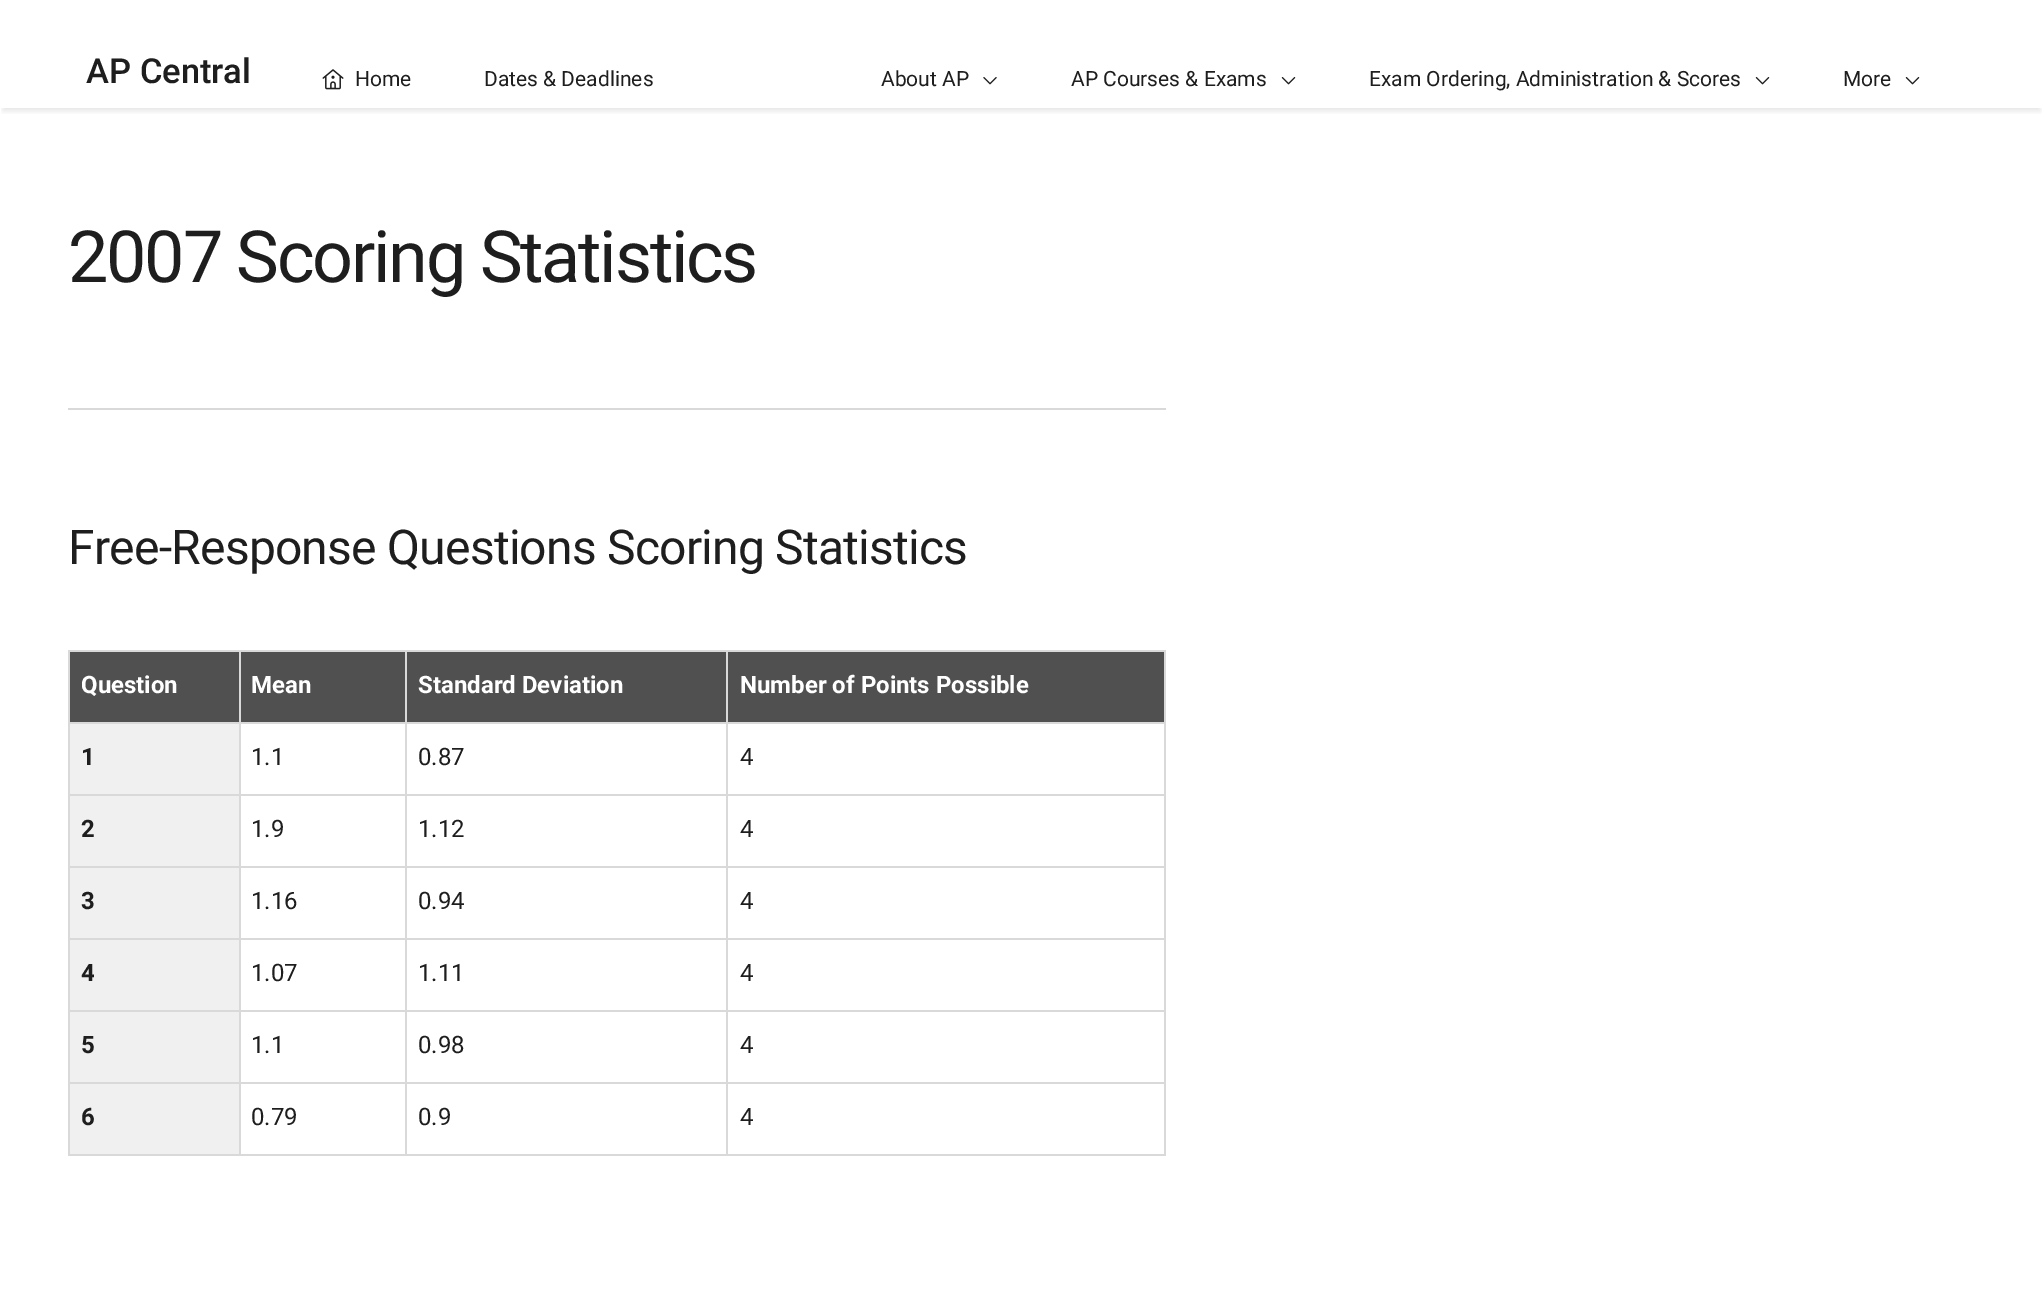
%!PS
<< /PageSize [2043 1305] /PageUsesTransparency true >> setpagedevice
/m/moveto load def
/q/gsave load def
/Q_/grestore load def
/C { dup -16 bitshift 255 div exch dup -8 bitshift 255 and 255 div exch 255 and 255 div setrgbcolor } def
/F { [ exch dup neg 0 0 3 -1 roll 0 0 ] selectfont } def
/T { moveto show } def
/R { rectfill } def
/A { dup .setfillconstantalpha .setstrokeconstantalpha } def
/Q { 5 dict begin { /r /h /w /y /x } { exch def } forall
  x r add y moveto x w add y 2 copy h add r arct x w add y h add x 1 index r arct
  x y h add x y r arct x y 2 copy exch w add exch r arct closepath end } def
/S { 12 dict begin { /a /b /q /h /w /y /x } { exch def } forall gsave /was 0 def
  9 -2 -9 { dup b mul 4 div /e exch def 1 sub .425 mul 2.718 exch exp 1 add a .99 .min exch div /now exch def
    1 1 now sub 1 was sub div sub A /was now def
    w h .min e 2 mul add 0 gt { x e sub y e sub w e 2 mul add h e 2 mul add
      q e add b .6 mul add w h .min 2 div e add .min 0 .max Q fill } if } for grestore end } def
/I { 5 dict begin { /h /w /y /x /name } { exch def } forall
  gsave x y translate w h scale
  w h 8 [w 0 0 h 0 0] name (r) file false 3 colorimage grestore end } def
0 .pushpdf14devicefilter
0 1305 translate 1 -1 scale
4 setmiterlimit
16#FFFFFF C
0 0 2043 1305 R
q
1 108 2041 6 rectclip
16#000000 C
3 9 2037 102 0 3 .1 S
Q_
/Roboto-Medium 34.5 F
16#1E1E1E C
(AP Central) 86 83 T
(1.rgb) 322 69 22 21 I
/Roboto-Regular 21 F
(Home) 355 86 T
(Dates & Deadlines) 484 86 T
(About AP) 881 86 T
(2.rgb) 983 77 14 8 I
(AP Courses & Exams) 1071 86 T
(3.rgb) 1281 77 15 8 I
(Exam Ordering, Administration & Scores) 1369 86 T
(3.rgb) 1755 77 15 8 I
(More) 1843 86 T
(3.rgb) 1905 77 15 8 I
16#D9D9D9 C
68 408 1098 2 R
/Roboto-Regular 72 F
16#1E1E1E C
68 282 m -2.25 0 (2007 Scoring Statistics) ashow
/Roboto-Regular 48 F
68 564 m -.75 0 (Free-Response Questions Scoring Statistics) ashow
16#505050 C
70 652 1094 70 R
16#D9D9D9 C
726 650 440 2 R
726 722 440 2 R
726 794 440 2 R
726 866 440 2 R
726 938 440 2 R
726 1010 440 2 R
726 1082 440 2 R
1164 1082 2 73 R
726 1154 440 2 R
726 1082 2 73 R
405 1082 323 2 R
726 1010 2 73 R
405 1010 323 2 R
726 938 2 73 R
405 938 323 2 R
726 866 2 73 R
405 866 323 2 R
726 794 2 73 R
405 794 323 2 R
726 722 2 73 R
405 722 323 2 R
726 650 2 73 R
405 650 323 2 R
405 1154 323 2 R
405 1082 2 73 R
239 1082 168 2 R
405 1010 2 73 R
239 1010 168 2 R
405 938 2 73 R
239 938 168 2 R
405 866 2 73 R
239 866 168 2 R
405 794 2 73 R
239 794 168 2 R
405 722 2 73 R
239 722 168 2 R
405 650 2 73 R
239 650 168 2 R
239 1154 168 2 R
239 1082 2 73 R
68 1082 172 2 R
239 1010 2 73 R
68 1010 172 2 R
239 938 2 73 R
68 938 172 2 R
239 866 2 73 R
68 866 172 2 R
239 794 2 73 R
68 794 172 2 R
239 722 2 73 R
68 722 172 2 R
239 650 2 73 R
68 650 172 2 R
68 1154 172 2 R
68 1082 2 73 R
68 1010 2 73 R
68 938 2 73 R
68 866 2 73 R
68 794 2 73 R
68 722 2 73 R
68 650 2 73 R
/Roboto-Bold 24 F
16#FFFFFF C
(Question) 81 693 T
(Mean) 251 693 T
(Standard Deviation) 418 693 T
16#D9D9D9 C
1164 1010 2 73 R
1164 938 2 73 R
1164 866 2 73 R
1164 794 2 73 R
1164 722 2 73 R
1164 650 2 73 R
16#FFFFFF C
(Number of Points Possible) 740 693 T
16#F0F0F0 C
70 724 169 70 R
16#1E1E1E C
(1) 81 765 T
/Roboto-Regular 24 F
(1.1) 251 765 T
(0.87) 418 765 T
(4) 740 765 T
16#F0F0F0 C
70 796 169 70 R
/Roboto-Bold 24 F
16#1E1E1E C
(2) 81 837 T
/Roboto-Regular 24 F
(1.9) 251 837 T
(1.12) 418 837 T
(4) 740 837 T
16#F0F0F0 C
70 868 169 70 R
/Roboto-Bold 24 F
16#1E1E1E C
(3) 81 909 T
/Roboto-Regular 24 F
(1.16) 251 909 T
(0.94) 418 909 T
(4) 740 909 T
16#F0F0F0 C
70 940 169 70 R
/Roboto-Bold 24 F
16#1E1E1E C
(4) 81 981 T
/Roboto-Regular 24 F
(1.07) 251 981 T
(1.11) 418 981 T
(4) 740 981 T
16#F0F0F0 C
70 1012 169 70 R
/Roboto-Bold 24 F
16#1E1E1E C
(5) 81 1053 T
/Roboto-Regular 24 F
(1.1) 251 1053 T
(0.98) 418 1053 T
(4) 740 1053 T
16#F0F0F0 C
70 1084 169 70 R
/Roboto-Bold 24 F
16#1E1E1E C
(6) 81 1125 T
/Roboto-Regular 24 F
(0.79) 251 1125 T
(0.9) 418 1125 T
(4) 740 1125 T
.poppdf14devicefilter showpage
